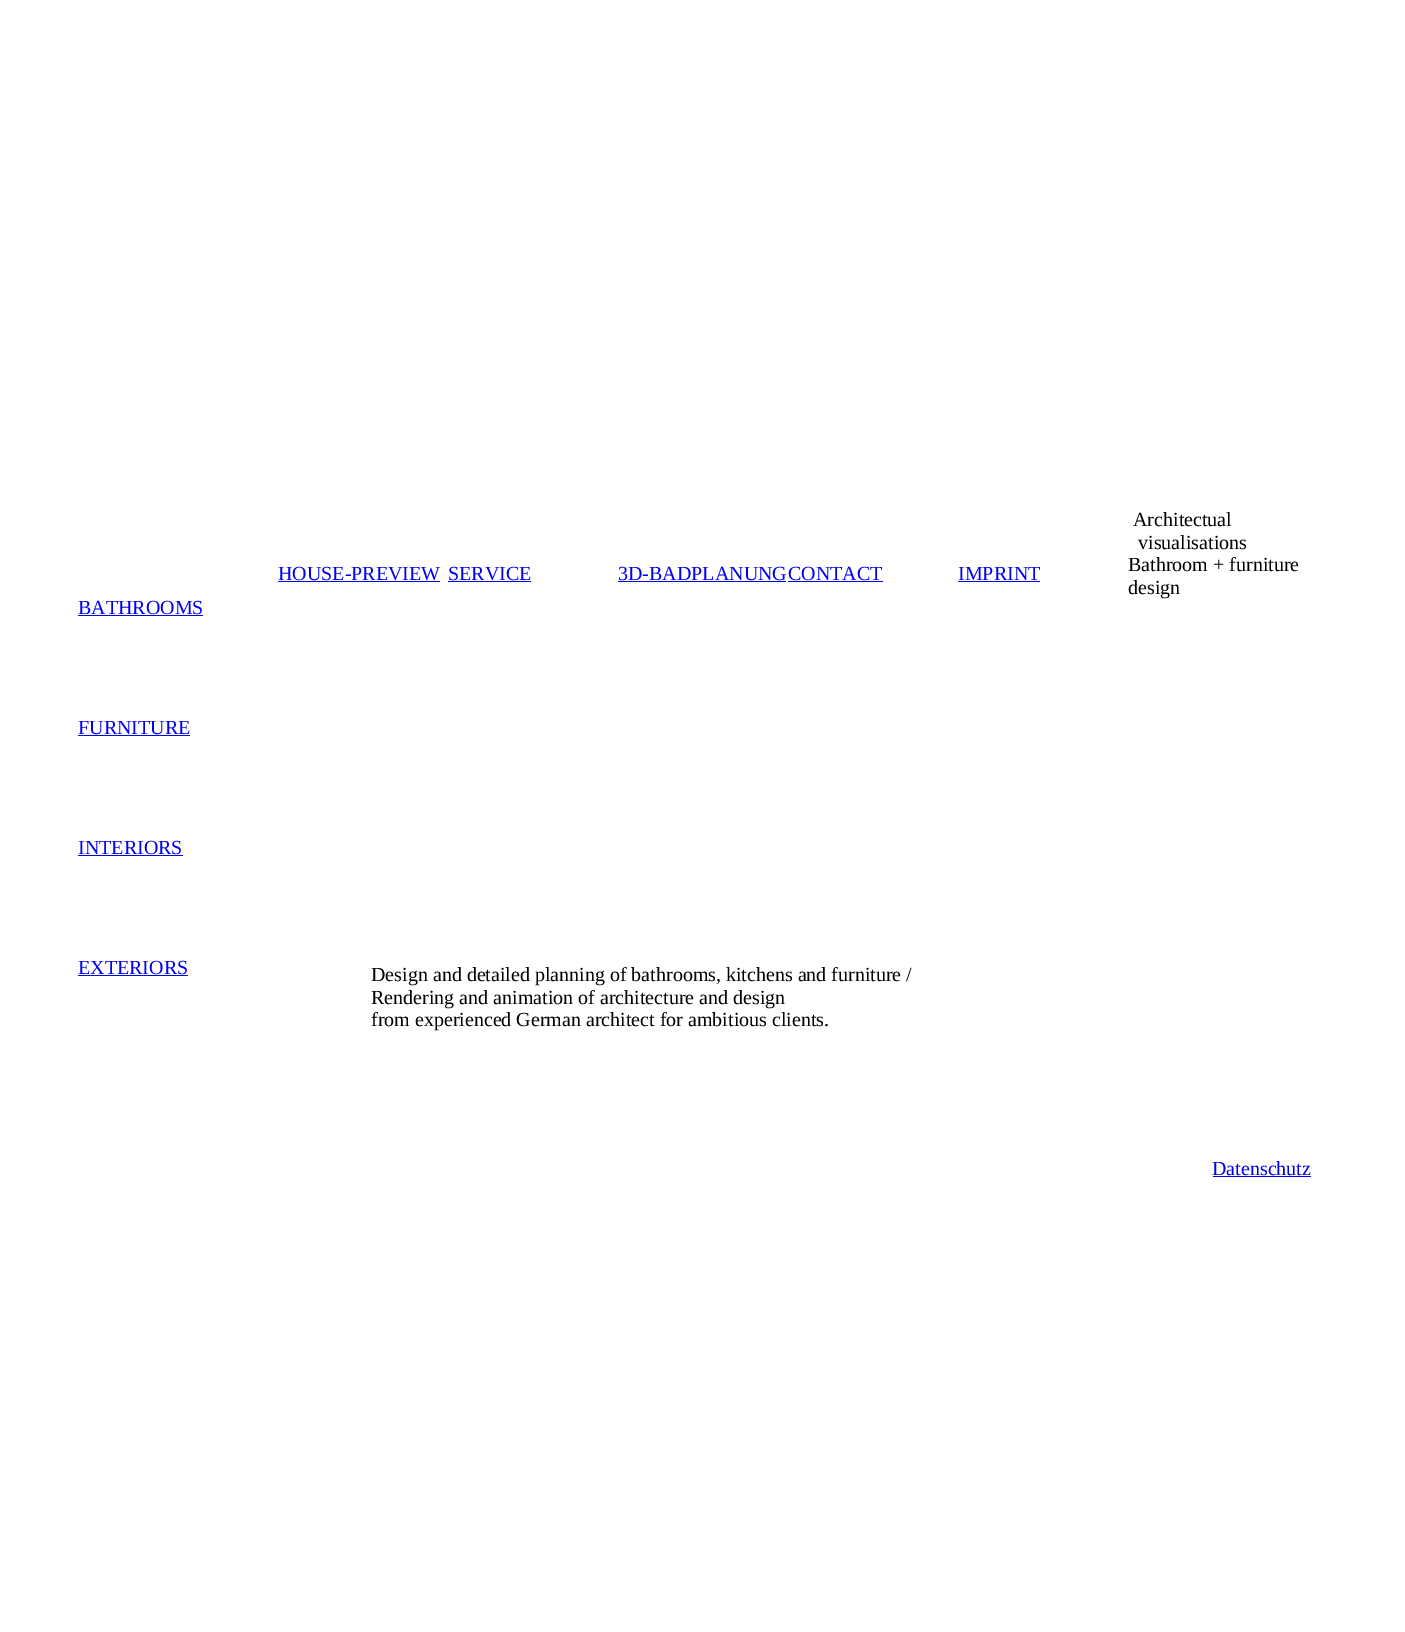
%!PS
<< /PageSize [1405 1632] >> setpagedevice
/C { dup -16 bitshift 255 div exch dup -8 bitshift 255 and 255 div exch 255 and 255 div setrgbcolor } def
/F { [ exch dup neg 0 0 3 -1 roll 0 0 ] selectfont } def
/T { moveto show } def
/R { rectfill } def
0 1632 translate 1 -1 scale
4 setmiterlimit
16#FFFFFF C
0 0 1405 1632 R
/LiberationSerif-Regular 20 F
16#0000EE C
(HOUSE-PREVIEW) 278 580 T
278 581 162 1 R
(SERVICE) 448 580 T
448 581 83 1 R
(3D-BADPLANUNG) 618 580 T
618 581 168 1 R
(CONTACT) 788 580 T
788 581 95 1 R
(IMPRINT) 958 580 T
958 581 82 1 R
16#000000 C
(Architectual) 1133 526 T
(visualisations) 1138 549 T
(Bathroom + furniture) 1128 571 T
(design) 1128 594 T
16#0000EE C
(BATHROOMS) 78 614 T
78 615 125 1 R
(FURNITURE) 78 734 T
78 735 112 1 R
(INTERIORS) 78 854 T
78 855 105 1 R
(EXTERIORS) 78 974 T
78 975 110 1 R
16#000000 C
(Design and detailed planning of bathrooms, kitchens and furniture /) 371 981 T
(Rendering and animation of architecture and design) 371 1004 T
(from experienced German architect for ambitious clients.) 371 1026 T
16#0000EE C
(Datenschutz) 1212 1175 T
1213 1176 98 1 R
showpage
